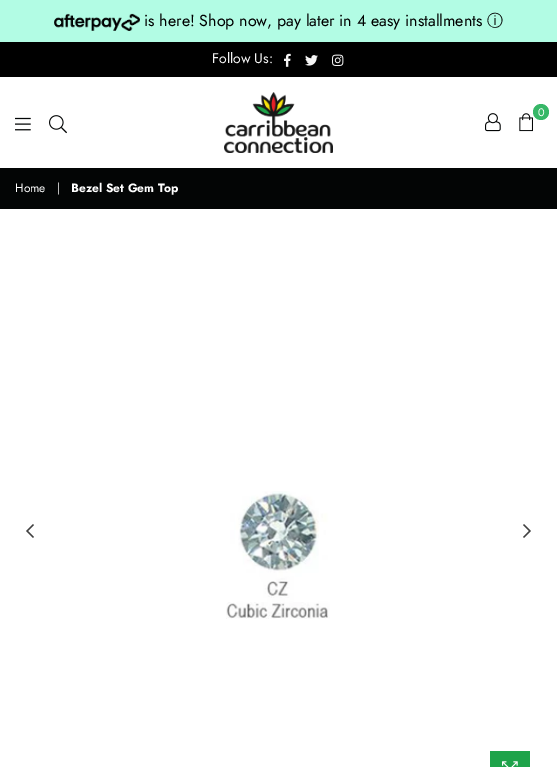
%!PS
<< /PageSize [557 767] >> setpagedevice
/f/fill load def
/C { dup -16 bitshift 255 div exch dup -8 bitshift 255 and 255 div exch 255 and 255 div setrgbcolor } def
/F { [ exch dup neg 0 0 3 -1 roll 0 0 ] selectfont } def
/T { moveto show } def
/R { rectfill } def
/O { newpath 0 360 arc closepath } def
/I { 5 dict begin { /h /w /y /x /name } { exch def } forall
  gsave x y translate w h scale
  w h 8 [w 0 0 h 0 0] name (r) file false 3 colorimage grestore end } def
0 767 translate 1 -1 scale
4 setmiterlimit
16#FFFFFF C
0 0 557 767 R
16#B2FCE4 C
0 0 557 42 R
(1.rgb) 54 13 86 18 I
/Jost-Regular 16 F
16#000000 C
(is here! Shop now, pay later in 4 easy installments) 144 26 T
/WenQuanYiZenHei-Medium 16 F
(ⓘ) 487 26 T
0 42 557 35 R
/Jost-Regular 14 F
16#F5F5F5 C
(Follow Us:) 212 63 T
(2.rgb) 284 53 7 14 I
(3.rgb) 305 55 13 11 I
(4.rgb) 332 54 12 12 I
(5.rgb) 224 92 109 61 I
(6.rgb) 485 113 16 19 I
(7.rgb) 519 113 14 19 I
16#37B767 C
541 112 8 O f
/Jost-Regular 11 F
16#FFFFFF C
(0) 538 116 T
(8.rgb) 15 117 16 14 I
(9.rgb) 49 115 18 19 I
16#030505 C
0 168 557 41 R
/Jost-Regular 12 F
16#FFFFFF C
(Home) 15 192 T
(|) 57 192 T
/Jost-Bold 12 F
(Bezel Set Gem Top) 71 192 T
(10.rgb) 26 524 8 14 I
(11.rgb) 226 491 104 128 I
(12.rgb) 523 524 8 14 I
16#1EA34A C
490 751 40 16 R
(13.rgb) 502 761 16 6 I
showpage
